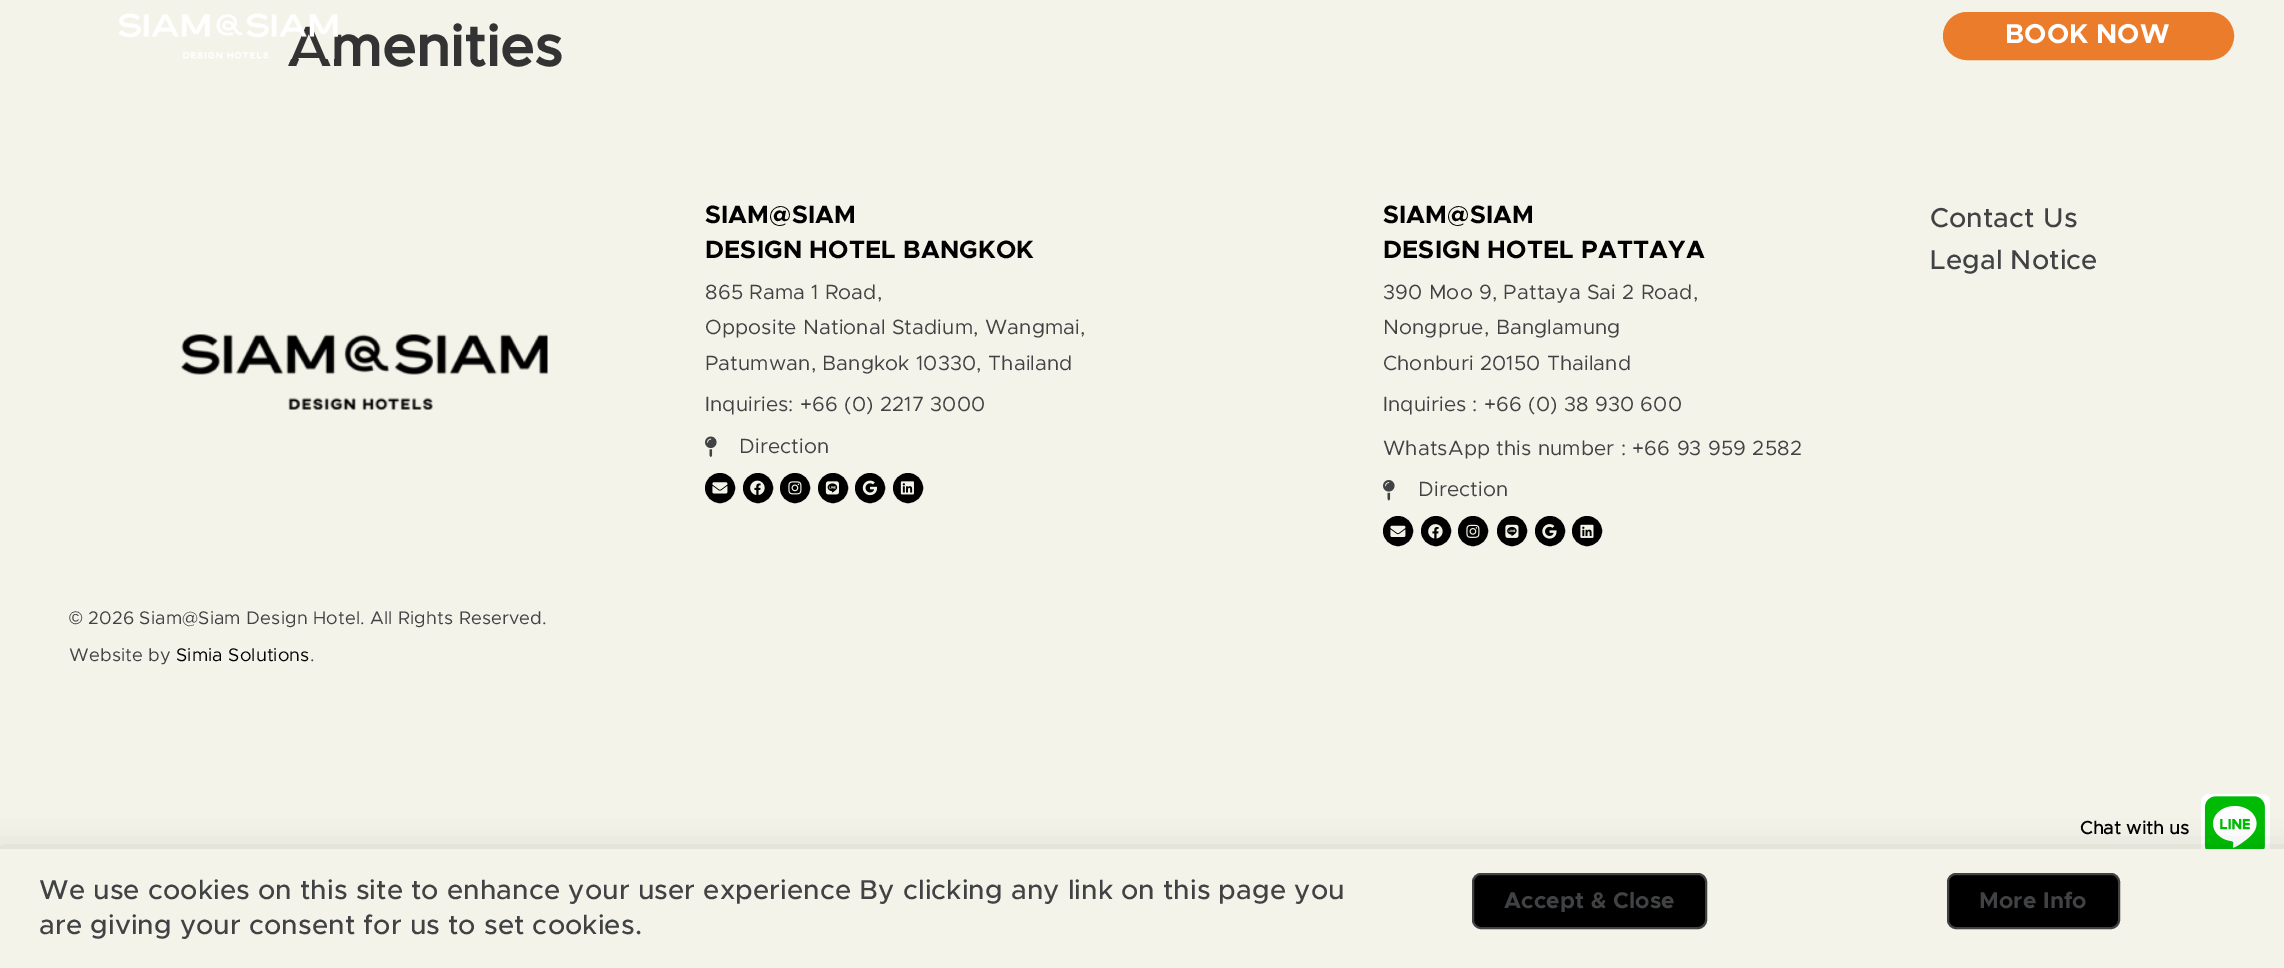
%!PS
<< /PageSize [2284 968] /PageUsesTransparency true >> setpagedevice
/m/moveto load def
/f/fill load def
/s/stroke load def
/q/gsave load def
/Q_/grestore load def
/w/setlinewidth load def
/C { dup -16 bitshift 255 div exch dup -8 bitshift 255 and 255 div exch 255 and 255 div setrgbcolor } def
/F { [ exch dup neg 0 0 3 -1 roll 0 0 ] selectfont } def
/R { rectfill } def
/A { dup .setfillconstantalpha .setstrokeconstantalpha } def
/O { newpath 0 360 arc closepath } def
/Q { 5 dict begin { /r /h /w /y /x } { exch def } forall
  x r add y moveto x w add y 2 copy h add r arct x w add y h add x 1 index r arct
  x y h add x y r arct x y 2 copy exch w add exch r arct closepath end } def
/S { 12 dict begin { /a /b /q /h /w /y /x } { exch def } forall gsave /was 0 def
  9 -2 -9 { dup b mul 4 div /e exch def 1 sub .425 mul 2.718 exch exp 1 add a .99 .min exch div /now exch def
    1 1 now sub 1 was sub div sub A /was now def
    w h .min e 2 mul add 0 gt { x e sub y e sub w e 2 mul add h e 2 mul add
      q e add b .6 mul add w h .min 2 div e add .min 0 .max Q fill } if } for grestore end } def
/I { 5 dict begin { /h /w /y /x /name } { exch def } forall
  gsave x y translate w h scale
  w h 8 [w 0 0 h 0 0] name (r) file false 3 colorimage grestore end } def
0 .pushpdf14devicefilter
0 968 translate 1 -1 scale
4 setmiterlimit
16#F3F3E9 C
0 0 2284 968 R
/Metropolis-Bold 57 F
16#333333 C
287 66 m .15 0 (Amenities) ashow
(1.rgb) 118 13 220 46 I
16#EB7C2B C
1944 13 289 46 23 Q q f Q_
2 w
s
/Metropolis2-Bold 27.4 F
16#FFFFFF C
2005 43 m .15 0 (BOOK NOW) ashow
/Metropolis2-Bold 25.1 F
16#000000 C
705 223 m .15 0 (SIAM@SIAM) ashow
705 258 m .15 0 (DESIGN HOTEL BANGKOK) ashow
/Metropolis-Regular 20.6 F
16#414244 C
705 299 m .15 0 (865 Rama 1 Road,) ashow
705 334 m .15 0 (Opposite National Stadium, Wangmai,) ashow
705 370 m .15 0 (Patumwan, Bangkok 10330, Thailand) ashow
705 411 m .15 0 (Inquiries: +66 \(0\) 2217 3000) ashow
(2.rgb) 705 436 12 21 I
739 453 m .15 0 (Direction) ashow
16#000000 C
720 488 14 O q f Q_
s
(3.rgb) 712 482 16 12 I
758 488 14 O q f Q_
s
(4.rgb) 750 480 15 15 I
795 488 14 O q f Q_
s
(5.rgb) 788 481 14 14 I
833 488 14 O q f Q_
s
(6.rgb) 825 481 14 14 I
870 488 14 O q f Q_
s
(7.rgb) 862 480 16 16 I
908 488 14 O q f Q_
s
(8.rgb) 900 481 14 14 I
/Metropolis2-Bold 25.1 F
1383 223 m .15 0 (SIAM@SIAM) ashow
1383 258 m .15 0 (DESIGN HOTEL PATTAYA) ashow
/Metropolis-Regular 20.6 F
16#414244 C
1383 299 m .15 0 (390 Moo 9, Pattaya Sai 2 Road,) ashow
1383 334 m .15 0 (Nongprue, Banglamung) ashow
1383 370 m .15 0 (Chonburi 20150 Thailand) ashow
1383 411 m .15 0 (Inquiries : +66 \(0\) 38 930 600) ashow
1383 455 m .15 0 (WhatsApp this number : +66 93 959 2582) ashow
(9.rgb) 1383 480 12 21 I
1418 496 m .15 0 (Direction) ashow
16#000000 C
1398 531 14 O q f Q_
s
(10.rgb) 1390 525 16 12 I
1436 531 14 O q f Q_
s
(11.rgb) 1428 524 15 15 I
1473 531 14 O q f Q_
s
(12.rgb) 1466 524 14 14 I
1512 531 14 O q f Q_
s
(13.rgb) 1505 524 14 14 I
1550 531 14 O q f Q_
s
(14.rgb) 1542 524 15 15 I
1587 531 14 O q f Q_
s
(15.rgb) 1580 524 14 14 I
/Metropolis-Medium 27.4 F
16#414244 C
1930 227 m .15 0 (Contact Us) ashow
1930 269 m .15 0 (Legal Notice) ashow
(16.rgb) 181 334 367 76 I
/LiberationSans-Regular 18.25 F
69 624 m .15 0 (©) ashow
/Metropolis-Regular 18.25 F
88 624 m .15 0 (2026 Siam@Siam Design Hotel. All Rights Reserved.) ashow
69 661 m .15 0 (Website by) ashow
16#000000 C
176 661 m .15 0 (Simia Solutions) ashow
16#414244 C
310 661 m .15 0 (.) ashow
/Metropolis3-Bold 18.25 F
16#000000 C
2080 834 m .15 0 (Chat with us) ashow
16#FFFFFF C
2201 794 69 69 8 Q f
(17.rgb) 2204 796 61 53 I
16#000000 C
-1 857 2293 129 0 17 .2 S
16#F3F3E9 C
0 849 2284 119 R
/Metropolis-Medium 27.4 F
16#414244 C
39 899 m .15 0 (We use cookies on this site to enhance your user experience By clicking any link on this page you) ashow
39 934 m .15 0 (are giving your consent for us to set cookies.) ashow
16#000000 C
1473 874 233 54 8 Q q f Q_
16#414244 C
s
/Metropolis2-Bold 22.75 F
1504 908 m .15 0 (Accept & Close) ashow
16#000000 C
1948 874 171 54 8 Q q f Q_
16#414244 C
s
1979 908 m .15 0 (More Info) ashow
.poppdf14devicefilter showpage
